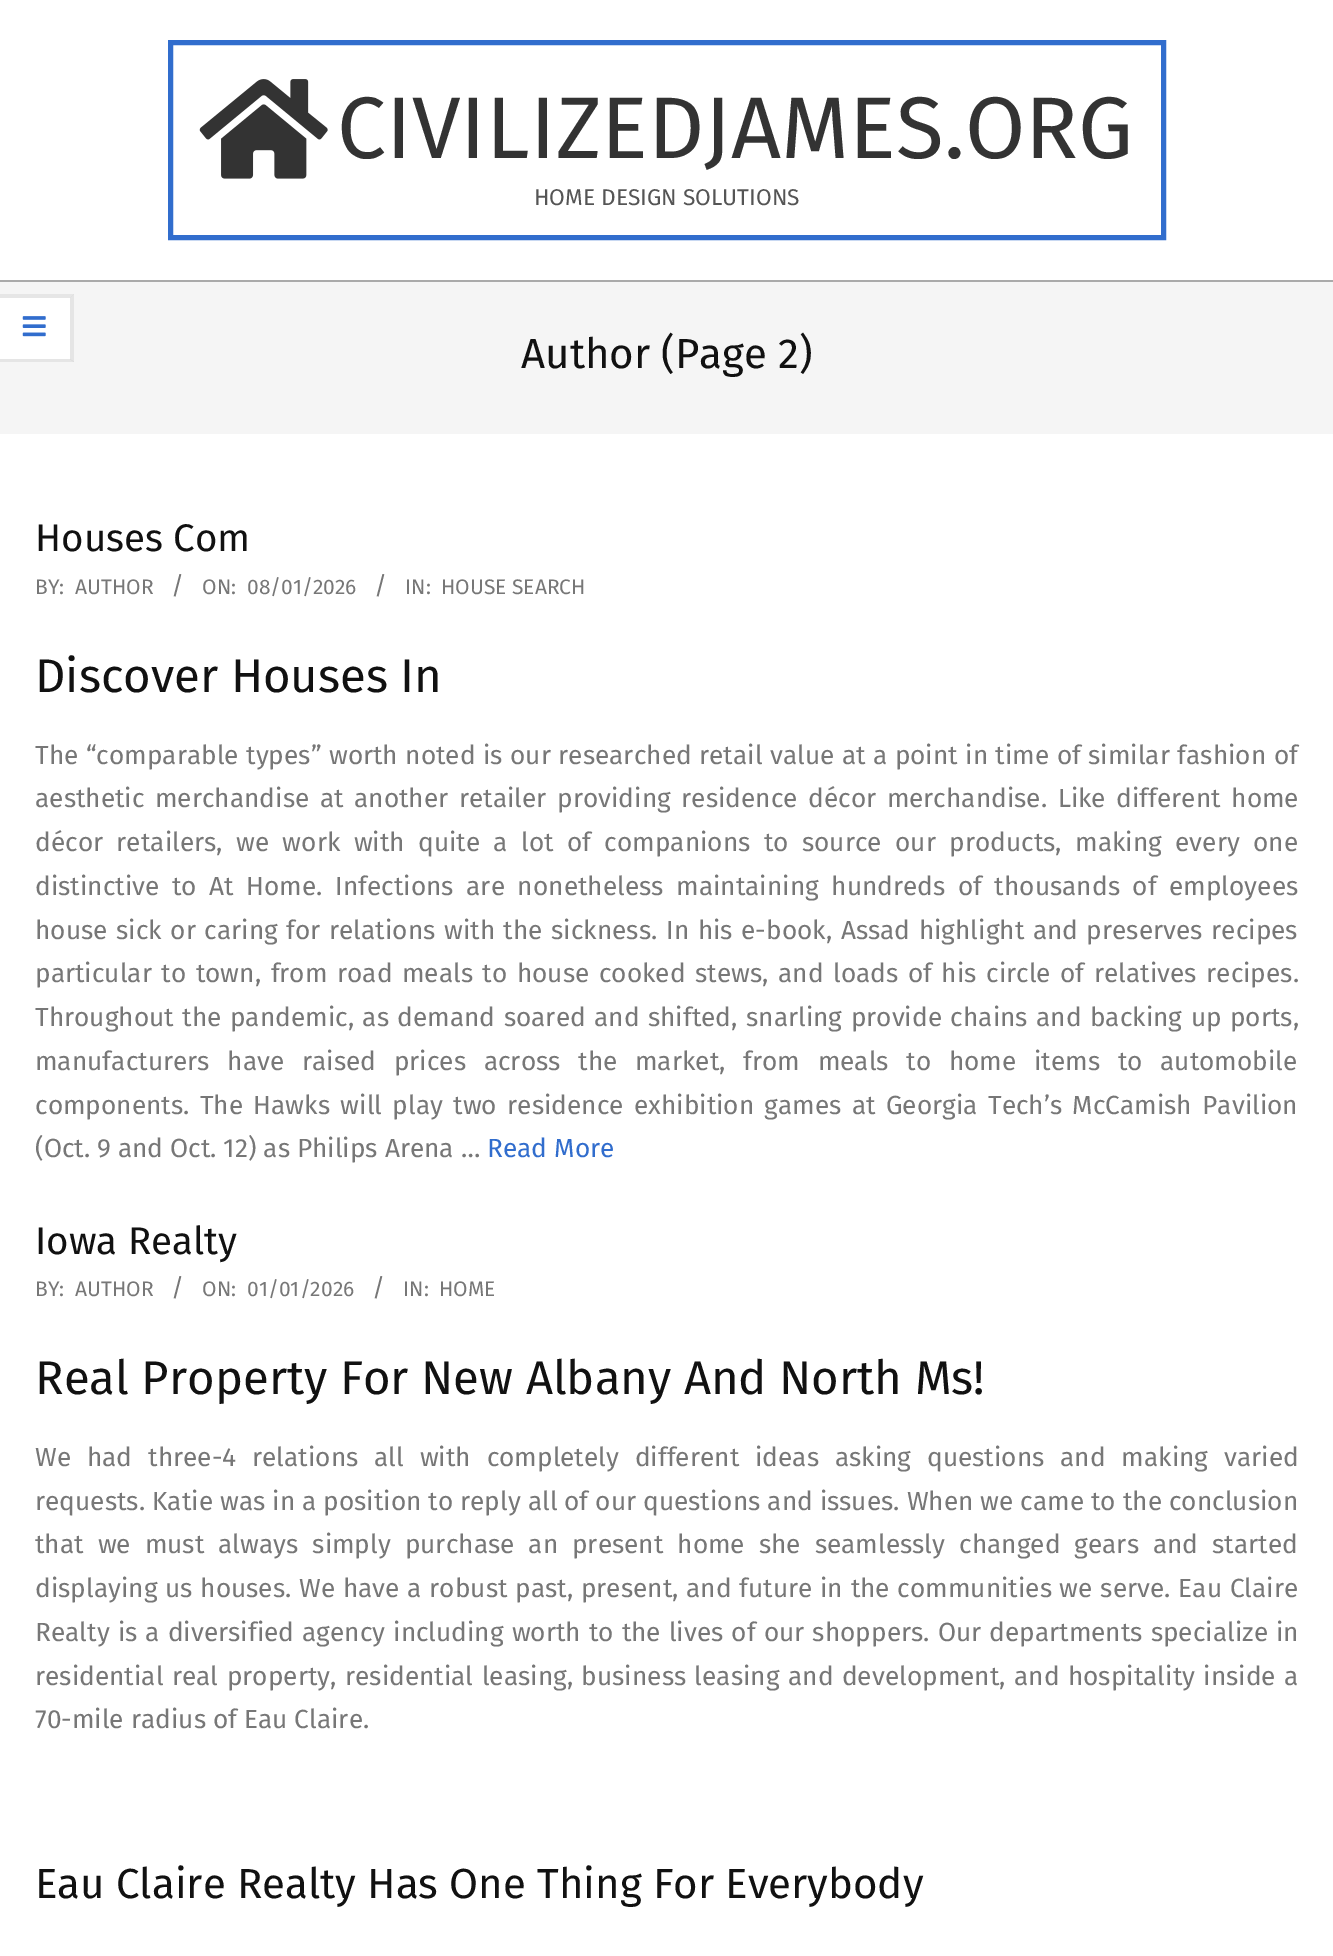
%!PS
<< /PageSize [1333 1956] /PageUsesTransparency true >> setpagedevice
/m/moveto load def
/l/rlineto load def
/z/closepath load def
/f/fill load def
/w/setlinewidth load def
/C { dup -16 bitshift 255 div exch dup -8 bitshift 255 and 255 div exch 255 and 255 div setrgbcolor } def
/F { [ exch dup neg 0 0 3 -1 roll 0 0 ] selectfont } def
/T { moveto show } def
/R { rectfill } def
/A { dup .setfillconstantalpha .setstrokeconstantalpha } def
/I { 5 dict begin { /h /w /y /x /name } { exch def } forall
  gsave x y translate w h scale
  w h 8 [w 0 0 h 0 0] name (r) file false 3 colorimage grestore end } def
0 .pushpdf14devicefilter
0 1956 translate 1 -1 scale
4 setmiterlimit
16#FFFFFF C
0 0 1333 1956 R
16#AAAAAA C
0 280 1333 2 R
16#316DCD C
5 w
170.5 42.5 993 195 rectstroke
(1.rgb) 199 79 129 100 I
/FiraSans-Regular 87.5 F
16#333333 C
(CIVILIZEDJAMES.ORG) 337 158 T
/FiraSans-Regular 22.75 F
16#555555 C
(HOME DESIGN SOLUTIONS) 534 205 T
16#F5F5F5 C
0 282 1333 152 R
16#FFFFFF C
0 294 74 68 R
16#E6E6E6 C
0 294 m 74 0 l -4 4 l -70 0 l z f
0.1 A
16#000000 C
74 294 m 0 68 l -4 -3 l 0 -61 l z f
74 362 m -74 0 l 0 -3 l 70 0 l z f
1 A
(2.rgb) 22 316 24 21 I
/FiraSans-Regular 42 F
16#111111 C
(Author \(Page 2\)) 521 368 T
/FiraSans-Regular 38.5 F
(Houses Com) 35 551 T
/FiraSans-Regular 21 F
16#777777 C
(BY:) 35 594 T
(AUTHOR) 75 594 T
/FiraSans-Regular 25 F
(/) 171 594 T
/FiraSans-Regular 21 F
(ON:) 202 594 T
(08/01/2026) 247 594 T
/FiraSans-Regular 25 F
(/) 374 594 T
/FiraSans-Regular 21 F
(IN:) 405 594 T
(HOUSE SEARCH) 441 594 T
/FiraSans-Regular 47.25 F
16#111111 C
(Discover Houses In) 35 692 T
/FiraSans-Regular 26.25 F
16#777777 C
35 764 m .5 0 32 (The “comparable types” worth noted is our researched retail value at a point in time of similar fashion of) widthshow
35 807 m 3.6 0 32 (aesthetic merchandise at another retailer providing residence décor merchandise. Like different home) widthshow
35 851 m 6.4 0 32 (décor retailers, we work with quite a lot of companions to source our products, making every one) widthshow
35 895 m 5.6 0 32 (distinctive to At Home. Infections are nonetheless maintaining hundreds of thousands of employees) widthshow
35 939 m 1.6 0 32 (house sick or caring for relations with the sickness. In his e-book, Assad highlight and preserves recipes) widthshow
35 982 m 2.6 0 32 (particular to town, from road meals to house cooked stews, and loads of his circle of relatives recipes.) widthshow
35 1026 m 1.5 0 32 (Throughout the pandemic, as demand soared and shifted, snarling provide chains and backing up ports,) widthshow
35 1070 m 10.75 0 32 (manufacturers have raised prices across the market, from meals to home items to automobile) widthshow
35 1114 m 3.4 0 32 (components. The Hawks will play two residence exhibition games at Georgia Tech’s McCamish Pavilion) widthshow
(\(Oct. 9 and Oct. 12\) as Philips Arena …) 35 1157 T
16#316DCD C
(Read More) 487 1157 T
/FiraSans-Regular 38.5 F
16#111111 C
(Iowa Realty) 35 1254 T
/FiraSans-Regular 21 F
16#777777 C
(BY:) 35 1296 T
(AUTHOR) 75 1296 T
/FiraSans-Regular 25 F
(/) 171 1296 T
/FiraSans-Regular 21 F
(ON:) 202 1296 T
(01/01/2026) 247 1296 T
/FiraSans-Regular 25 F
(/) 372 1296 T
/FiraSans-Regular 21 F
(IN:) 403 1296 T
(HOME) 439 1296 T
/FiraSans-Regular 47.25 F
16#111111 C
(Real Property For New Albany And North Ms!) 35 1394 T
/FiraSans-Regular 26.25 F
16#777777 C
35 1466 m 8.9 0 32 (We had three-4 relations all with completely different ideas asking questions and making varied) widthshow
(requests. Katie was in a position to reply all of our questions and issues. When we came to the conclusion) 35 1510 T
35 1553 m 7 0 32 (that we must always simply purchase an present home she seamlessly changed gears and started) widthshow
35 1597 m .75 0 32 (displaying us houses. We have a robust past, present, and future in the communities we serve. Eau Claire) widthshow
35 1641 m 1.1 0 32 (Realty is a diversified agency including worth to the lives of our shoppers. Our departments specialize in) widthshow
35 1685 m 1.5 0 32 (residential real property, residential leasing, business leasing and development, and hospitality inside a) widthshow
(70-mile radius of Eau Claire.) 35 1728 T
/FiraSans-Regular 42 F
16#111111 C
(Eau Claire Realty Has One Thing For Everybody) 35 1898 T
.poppdf14devicefilter showpage
